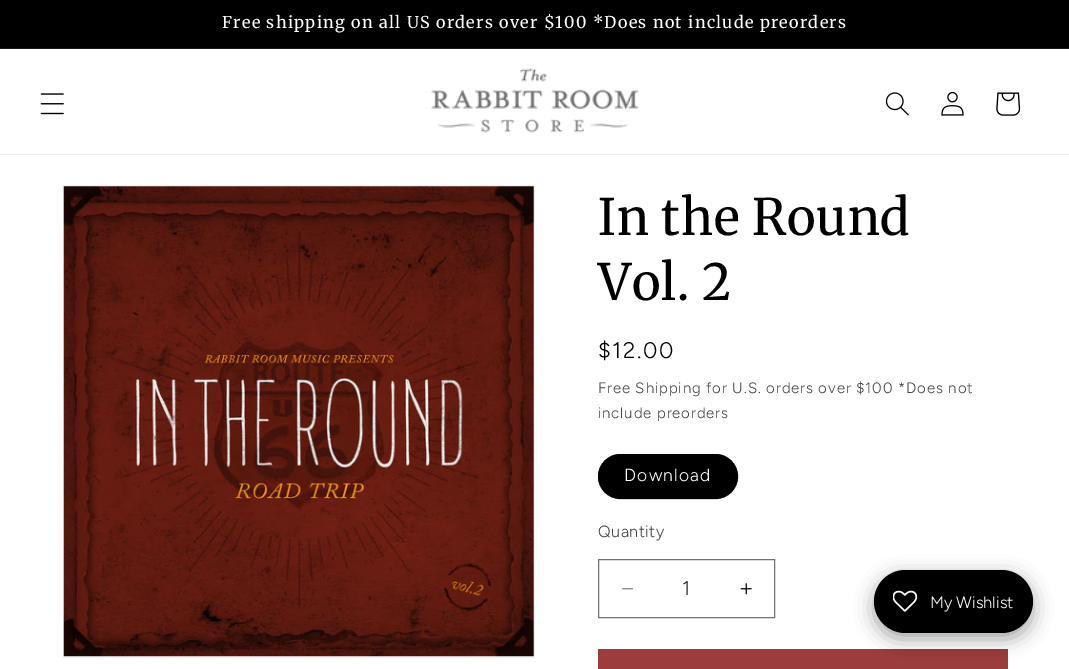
%!PS
<< /PageSize [1069 669] /PageUsesTransparency true >> setpagedevice
/m/moveto load def
/f/fill load def
/s/stroke load def
/C { dup -16 bitshift 255 div exch dup -8 bitshift 255 and 255 div exch 255 and 255 div setrgbcolor } def
/F { [ exch dup neg 0 0 3 -1 roll 0 0 ] selectfont } def
/T { moveto show } def
/R { rectfill } def
/A { dup .setfillconstantalpha .setstrokeconstantalpha } def
/Q { 5 dict begin { /r /h /w /y /x } { exch def } forall
  x r add y moveto x w add y 2 copy h add r arct x w add y h add x 1 index r arct
  x y h add x y r arct x y 2 copy exch w add exch r arct closepath end } def
/S { 12 dict begin { /a /b /q /h /w /y /x } { exch def } forall gsave /was 0 def
  9 -2 -9 { dup b mul 4 div /e exch def 1 sub .425 mul 2.718 exch exp 1 add a .99 .min exch div /now exch def
    1 1 now sub 1 was sub div sub A /was now def
    w h .min e 2 mul add 0 gt { x e sub y e sub w e 2 mul add h e 2 mul add
      q e add b .6 mul add w h .min 2 div e add .min 0 .max Q fill } if } for grestore end } def
/I { 5 dict begin { /h /w /y /x /name } { exch def } forall
  gsave x y translate w h scale
  w h 8 [w 0 0 h 0 0] name (r) file false 3 colorimage grestore end } def
0 .pushpdf14devicefilter
0 669 translate 1 -1 scale
4 setmiterlimit
16#FFFFFF C
0 0 1069 669 R
16#000000 C
0 0 1069 48 R
16#141414 C
0 48 1069 1 R
/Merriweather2-Regular 16.25 F
16#FFFFFF C
222 28 m 1.25 0 (Free shipping on all US orders over $100 *Does not include preorders) ashow
16#EBEBEB C
0 154 1069 1 R
(1.rgb) 40 93 24 22 I
(2.rgb) 431 67 208 66 I
(3.rgb) 885 92 24 24 I
(4.rgb) 941 91 23 25 I
(5.rgb) 996 92 25 24 I
16#F2F2F2 C
63.5 185.5 471 472 rectstroke
(6.rgb) 63 186 471 471 I
/Merriweather-Regular 50 F
16#000000 C
598 235 m .75 0 (In the Round) ashow
598 300 m .75 0 (Vol. 2) ashow
/Figtree-Light 22.5 F
598 358 m 1.5 0 ($12.00) ashow
/Figtree-Light 15 F
16#404040 C
598 393 m .9 0 (Free Shipping for U.S. orders over $100 *Does not) ashow
598 418 m .9 0 (include preorders) ashow
16#000000 C
598 454 140 45 22.5 Q f
0.55 A
598.5 454.5 139 44 22 Q s
/Figtree-Light 17.5 F
1 A
16#FFFFFF C
624 481 m 1.25 0 (Download) ashow
/Figtree-Light 16.25 F
16#404040 C
598 537 m .5 0 (Quantity) ashow
(7.rgb) 622 588 11 2 I
(8.rgb) 740 583 12 12 I
16#737373 C
598.5 559.5 176 58 rectstroke
/Figtree-Light 20 F
16#262626 C
(1) 682 595 T
16#9C3C3D C
598 649 410 20 R
16#000000 C
874 576 159 63 31.5 9.5 .35 S
874 570 159 63 31.5 Q f
(9.rgb) 893 590 25 22 I
/Figtree-Light 16.5 F
16#FFFFFF C
(My Wishlist) 930 608 T
.poppdf14devicefilter showpage
